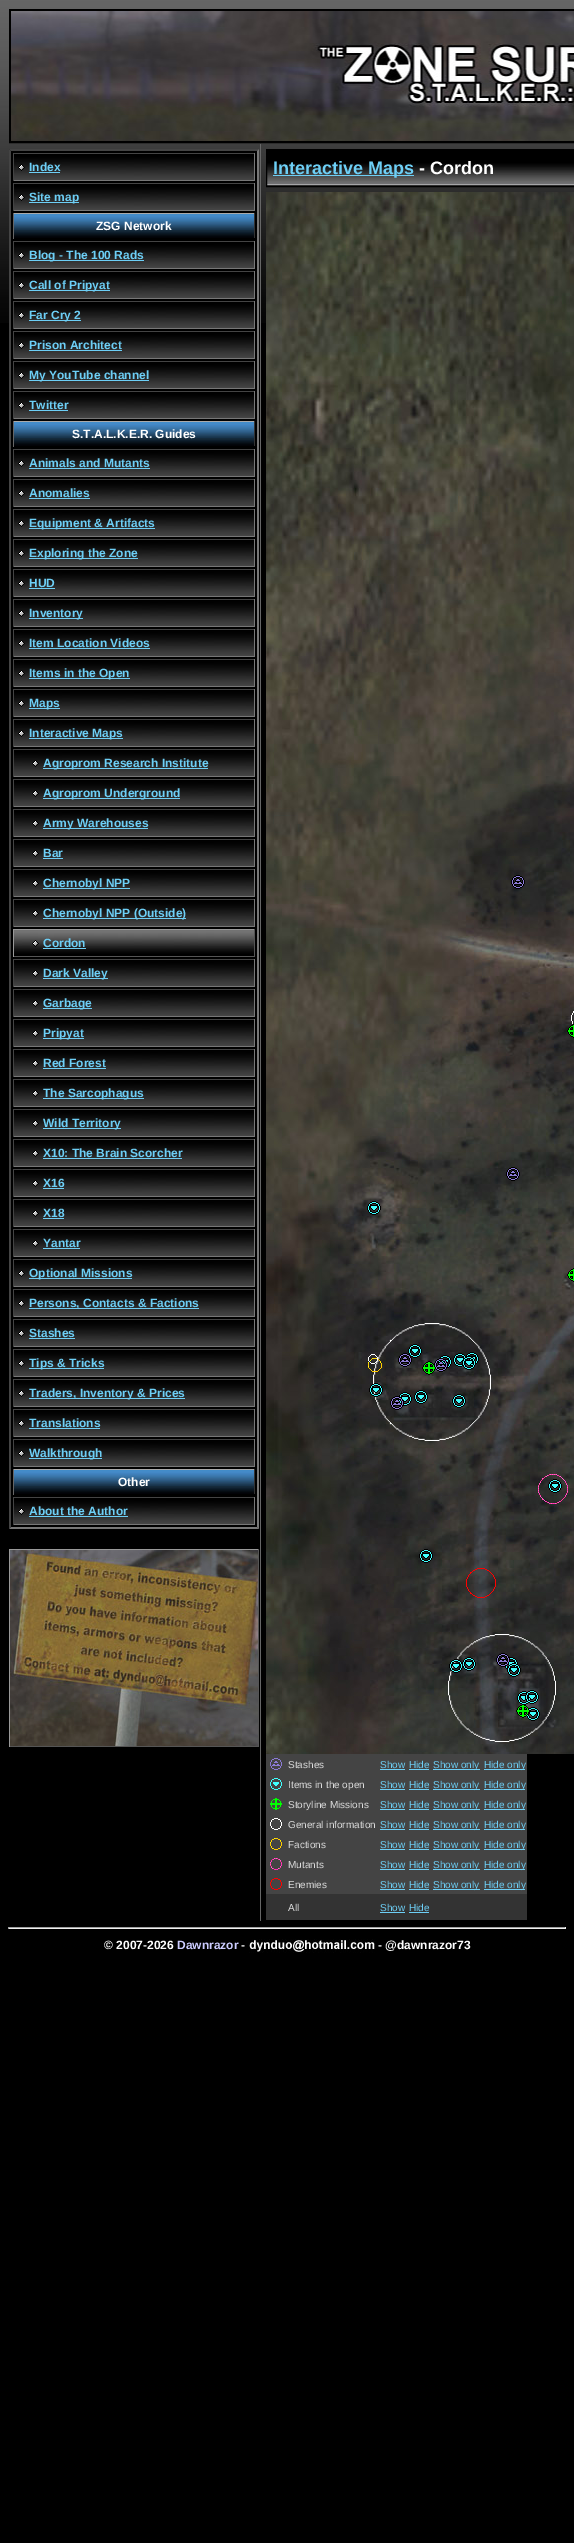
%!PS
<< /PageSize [574 2543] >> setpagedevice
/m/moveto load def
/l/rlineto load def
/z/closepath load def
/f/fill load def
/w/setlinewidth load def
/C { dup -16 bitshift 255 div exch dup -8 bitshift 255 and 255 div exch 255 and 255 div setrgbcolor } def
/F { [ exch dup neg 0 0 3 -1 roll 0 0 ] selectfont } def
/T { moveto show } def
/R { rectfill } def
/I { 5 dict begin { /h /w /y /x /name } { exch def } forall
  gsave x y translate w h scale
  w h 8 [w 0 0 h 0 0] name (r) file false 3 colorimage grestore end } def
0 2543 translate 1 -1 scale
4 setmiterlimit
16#000000 C
0 0 574 2543 R
(1.rgb) 0 0 574 323 I
2 w
10 10 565 132 rectstroke
(2.rgb) 11 11 563 130 I
9 149 250 174 R
16#444444 C
9 149 m 250 0 l -2 2 l -246 0 l z f
16#777777 C
259 149 m 0 1380 l -2 -2 l 0 -1376 l z f
259 1529 m -250 0 l 2 -2 l 246 0 l z f
16#444444 C
9 1529 m 0 -1380 l 2 2 l 0 1376 l z f
(3.rgb) 14 154 240 26 I
13 153 242 1 R
16#777777 C
254 153 1 28 R
13 180 242 1 R
16#444444 C
13 153 1 28 R
(4.rgb) 18 164 7 7 I
/LiberationSans-Bold 12 F
16#6DCFF6 C
(Index) 29 171 T
29 172 31 1 R
(3.rgb) 14 184 240 26 I
16#444444 C
13 183 242 1 R
16#777777 C
254 183 1 28 R
13 210 242 1 R
16#444444 C
13 183 1 28 R
(4.rgb) 18 194 7 7 I
16#6DCFF6 C
29 202 50 1 R
(Site map) 29 201 T
(5.rgb) 14 214 240 24 I
16#AAAAAA C
13 213 242 1 R
16#333333 C
254 213 1 26 R
16#000000 C
254 238 1 1 R
16#666666 C
13 213 1 26 R
16#FFFFFF C
(ZSG Network) 96 230 T
(3.rgb) 14 242 240 26 I
16#444444 C
13 241 242 1 R
16#777777 C
254 241 1 28 R
13 268 242 1 R
16#444444 C
13 241 1 28 R
(4.rgb) 18 252 7 7 I
16#6DCFF6 C
29 260 115 1 R
(Blog - The 100 Rads) 29 259 T
(3.rgb) 14 272 240 26 I
16#444444 C
13 271 242 1 R
16#777777 C
254 271 1 28 R
13 298 242 1 R
16#444444 C
13 271 1 28 R
(4.rgb) 18 282 7 7 I
16#6DCFF6 C
29 290 81 1 R
(Call of Pripyat) 29 289 T
(3.rgb) 14 302 240 26 I
16#444444 C
13 301 242 1 R
16#777777 C
254 301 1 28 R
13 328 242 1 R
16#444444 C
13 301 1 28 R
(4.rgb) 18 312 7 7 I
16#6DCFF6 C
29 320 52 1 R
(Far Cry 2) 29 319 T
(3.rgb) 14 332 240 26 I
16#444444 C
13 331 242 1 R
16#777777 C
254 331 1 28 R
13 358 242 1 R
16#444444 C
13 331 1 28 R
(4.rgb) 18 342 7 7 I
16#6DCFF6 C
(Prison Architect) 29 349 T
29 350 93 1 R
(3.rgb) 14 362 240 26 I
16#444444 C
13 361 242 1 R
16#777777 C
254 361 1 28 R
13 388 242 1 R
16#444444 C
13 361 1 28 R
(4.rgb) 18 372 7 7 I
16#6DCFF6 C
29 380 120 1 R
(My YouTube channel) 29 379 T
(3.rgb) 14 392 240 26 I
16#444444 C
13 391 242 1 R
16#777777 C
254 391 1 28 R
13 418 242 1 R
16#444444 C
13 391 1 28 R
(4.rgb) 18 402 7 7 I
16#6DCFF6 C
(Twitter) 29 409 T
29 410 39 1 R
(5.rgb) 14 422 240 24 I
16#AAAAAA C
13 421 242 1 R
16#333333 C
254 421 1 26 R
16#000000 C
254 446 1 1 R
16#666666 C
13 421 1 26 R
16#FFFFFF C
(S.T.A.L.K.E.R. Guides) 72 438 T
(3.rgb) 14 450 240 26 I
16#444444 C
13 449 242 1 R
16#777777 C
254 449 1 28 R
13 476 242 1 R
16#444444 C
13 449 1 28 R
(4.rgb) 18 460 7 7 I
16#6DCFF6 C
(Animals and Mutants) 29 467 T
29 468 121 1 R
(3.rgb) 14 480 240 26 I
16#444444 C
13 479 242 1 R
16#777777 C
254 479 1 28 R
13 506 242 1 R
16#444444 C
13 479 1 28 R
(4.rgb) 18 490 7 7 I
16#6DCFF6 C
(Anomalies) 29 497 T
29 498 61 1 R
(3.rgb) 14 510 240 26 I
16#444444 C
13 509 242 1 R
16#777777 C
254 509 1 28 R
13 536 242 1 R
16#444444 C
13 509 1 28 R
(4.rgb) 18 520 7 7 I
16#6DCFF6 C
29 528 126 1 R
(Equipment & Artifacts) 29 527 T
(3.rgb) 14 540 240 26 I
16#444444 C
13 539 242 1 R
16#777777 C
254 539 1 28 R
13 566 242 1 R
16#444444 C
13 539 1 28 R
(4.rgb) 18 550 7 7 I
16#6DCFF6 C
29 558 109 1 R
(Exploring the Zone) 29 557 T
(3.rgb) 14 570 240 26 I
16#444444 C
13 569 242 1 R
16#777777 C
254 569 1 28 R
13 596 242 1 R
16#444444 C
13 569 1 28 R
(4.rgb) 18 580 7 7 I
16#6DCFF6 C
(HUD) 29 587 T
29 588 26 1 R
(3.rgb) 14 600 240 26 I
16#444444 C
13 599 242 1 R
16#777777 C
254 599 1 28 R
13 626 242 1 R
16#444444 C
13 599 1 28 R
(4.rgb) 18 610 7 7 I
16#6DCFF6 C
29 618 54 1 R
(Inventory) 29 617 T
(3.rgb) 14 630 240 26 I
16#444444 C
13 629 242 1 R
16#777777 C
254 629 1 28 R
13 656 242 1 R
16#444444 C
13 629 1 28 R
(4.rgb) 18 640 7 7 I
16#6DCFF6 C
(Item Location Videos) 29 647 T
29 648 121 1 R
(3.rgb) 14 660 240 26 I
16#444444 C
13 659 242 1 R
16#777777 C
254 659 1 28 R
13 686 242 1 R
16#444444 C
13 659 1 28 R
(4.rgb) 18 670 7 7 I
16#6DCFF6 C
29 678 101 1 R
(Items in the Open) 29 677 T
(3.rgb) 14 690 240 26 I
16#444444 C
13 689 242 1 R
16#777777 C
254 689 1 28 R
13 716 242 1 R
16#444444 C
13 689 1 28 R
(4.rgb) 18 700 7 7 I
16#6DCFF6 C
29 708 31 1 R
(Maps) 29 707 T
(3.rgb) 14 720 240 26 I
16#444444 C
13 719 242 1 R
16#777777 C
254 719 1 28 R
13 746 242 1 R
16#444444 C
13 719 1 28 R
(4.rgb) 18 730 7 7 I
16#6DCFF6 C
29 738 94 1 R
(Interactive Maps) 29 737 T
(3.rgb) 14 750 240 26 I
16#444444 C
13 749 242 1 R
16#777777 C
254 749 1 28 R
13 776 242 1 R
16#444444 C
13 749 1 28 R
(6.rgb) 32 760 7 7 I
16#6DCFF6 C
43 768 165 1 R
(Agroprom Research Institute) 43 767 T
(3.rgb) 14 780 240 26 I
16#444444 C
13 779 242 1 R
16#777777 C
254 779 1 28 R
13 806 242 1 R
16#444444 C
13 779 1 28 R
(6.rgb) 32 790 7 7 I
16#6DCFF6 C
43 798 137 1 R
(Agroprom Underground) 43 797 T
(3.rgb) 14 810 240 26 I
16#444444 C
13 809 242 1 R
16#777777 C
254 809 1 28 R
13 836 242 1 R
16#444444 C
13 809 1 28 R
(6.rgb) 32 820 7 7 I
16#6DCFF6 C
43 828 105 1 R
(Army Warehouses) 43 827 T
(3.rgb) 14 840 240 26 I
16#444444 C
13 839 242 1 R
16#777777 C
254 839 1 28 R
13 866 242 1 R
16#444444 C
13 839 1 28 R
(6.rgb) 32 850 7 7 I
16#6DCFF6 C
(Bar) 43 857 T
43 858 20 1 R
(3.rgb) 14 870 240 26 I
16#444444 C
13 869 242 1 R
16#777777 C
254 869 1 28 R
13 896 242 1 R
16#444444 C
13 869 1 28 R
(6.rgb) 32 880 7 7 I
16#6DCFF6 C
43 888 87 1 R
(Chernobyl NPP) 43 887 T
(3.rgb) 14 900 240 26 I
16#444444 C
13 899 242 1 R
16#777777 C
254 899 1 28 R
13 926 242 1 R
16#444444 C
13 899 1 28 R
(6.rgb) 32 910 7 7 I
16#6DCFF6 C
43 918 143 1 R
(Chernobyl NPP \(Outside\)) 43 917 T
(7.rgb) 14 930 240 26 I
16#999999 C
13 929 242 1 R
16#555555 C
254 929 1 28 R
13 956 242 1 R
16#999999 C
13 929 1 28 R
(8.rgb) 32 940 7 7 I
16#6DCFF6 C
(Cordon) 43 947 T
43 948 43 1 R
(3.rgb) 14 960 240 26 I
16#444444 C
13 959 242 1 R
16#777777 C
254 959 1 28 R
13 986 242 1 R
16#444444 C
13 959 1 28 R
(6.rgb) 32 970 7 7 I
16#6DCFF6 C
43 978 65 1 R
(Dark Valley) 43 977 T
(3.rgb) 14 990 240 26 I
16#444444 C
13 989 242 1 R
16#777777 C
254 989 1 28 R
13 1016 242 1 R
16#444444 C
13 989 1 28 R
(6.rgb) 32 1000 7 7 I
16#6DCFF6 C
43 1008 49 1 R
(Garbage) 43 1007 T
(3.rgb) 14 1020 240 26 I
16#444444 C
13 1019 242 1 R
16#777777 C
254 1019 1 28 R
13 1046 242 1 R
16#444444 C
13 1019 1 28 R
(6.rgb) 32 1030 7 7 I
16#6DCFF6 C
43 1038 41 1 R
(Pripyat) 43 1037 T
(3.rgb) 14 1050 240 26 I
16#444444 C
13 1049 242 1 R
16#777777 C
254 1049 1 28 R
13 1076 242 1 R
16#444444 C
13 1049 1 28 R
(6.rgb) 32 1060 7 7 I
16#6DCFF6 C
(Red Forest) 43 1067 T
43 1068 63 1 R
(3.rgb) 14 1080 240 26 I
16#444444 C
13 1079 242 1 R
16#777777 C
254 1079 1 28 R
13 1106 242 1 R
16#444444 C
13 1079 1 28 R
(6.rgb) 32 1090 7 7 I
16#6DCFF6 C
43 1098 101 1 R
(The Sarcophagus) 43 1097 T
(3.rgb) 14 1110 240 26 I
16#444444 C
13 1109 242 1 R
16#777777 C
254 1109 1 28 R
13 1136 242 1 R
16#444444 C
13 1109 1 28 R
(6.rgb) 32 1120 7 7 I
16#6DCFF6 C
43 1128 78 1 R
(Wild Territory) 43 1127 T
(3.rgb) 14 1140 240 26 I
16#444444 C
13 1139 242 1 R
16#777777 C
254 1139 1 28 R
13 1166 242 1 R
16#444444 C
13 1139 1 28 R
(6.rgb) 32 1150 7 7 I
16#6DCFF6 C
(X10: The Brain Scorcher) 43 1157 T
43 1158 139 1 R
(3.rgb) 14 1170 240 26 I
16#444444 C
13 1169 242 1 R
16#777777 C
254 1169 1 28 R
13 1196 242 1 R
16#444444 C
13 1169 1 28 R
(6.rgb) 32 1180 7 7 I
16#6DCFF6 C
(X16) 43 1187 T
43 1188 21 1 R
(3.rgb) 14 1200 240 26 I
16#444444 C
13 1199 242 1 R
16#777777 C
254 1199 1 28 R
13 1226 242 1 R
16#444444 C
13 1199 1 28 R
(6.rgb) 32 1210 7 7 I
16#6DCFF6 C
(X18) 43 1217 T
43 1218 21 1 R
(3.rgb) 14 1230 240 26 I
16#444444 C
13 1229 242 1 R
16#777777 C
254 1229 1 28 R
13 1256 242 1 R
16#444444 C
13 1229 1 28 R
(6.rgb) 32 1240 7 7 I
16#6DCFF6 C
(Yantar) 43 1247 T
43 1248 37 1 R
(3.rgb) 14 1260 240 26 I
16#444444 C
13 1259 242 1 R
16#777777 C
254 1259 1 28 R
13 1286 242 1 R
16#444444 C
13 1259 1 28 R
(4.rgb) 18 1270 7 7 I
16#6DCFF6 C
29 1278 103 1 R
(Optional Missions) 29 1277 T
(3.rgb) 14 1290 240 26 I
16#444444 C
13 1289 242 1 R
16#777777 C
254 1289 1 28 R
13 1316 242 1 R
16#444444 C
13 1289 1 28 R
(4.rgb) 18 1300 7 7 I
16#6DCFF6 C
29 1308 170 1 R
(Persons, Contacts & Factions) 29 1307 T
(3.rgb) 14 1320 240 26 I
16#444444 C
13 1319 242 1 R
16#777777 C
254 1319 1 28 R
13 1346 242 1 R
16#444444 C
13 1319 1 28 R
(4.rgb) 18 1330 7 7 I
16#6DCFF6 C
(Stashes) 29 1337 T
29 1338 46 1 R
(3.rgb) 14 1350 240 26 I
16#444444 C
13 1349 242 1 R
16#777777 C
254 1349 1 28 R
13 1376 242 1 R
16#444444 C
13 1349 1 28 R
(4.rgb) 18 1360 7 7 I
16#6DCFF6 C
29 1368 75 1 R
(Tips & Tricks) 29 1367 T
(3.rgb) 14 1380 240 26 I
16#444444 C
13 1379 242 1 R
16#777777 C
254 1379 1 28 R
13 1406 242 1 R
16#444444 C
13 1379 1 28 R
(4.rgb) 18 1390 7 7 I
16#6DCFF6 C
29 1398 156 1 R
(Traders, Inventory & Prices) 29 1397 T
(3.rgb) 14 1410 240 26 I
16#444444 C
13 1409 242 1 R
16#777777 C
254 1409 1 28 R
13 1436 242 1 R
16#444444 C
13 1409 1 28 R
(4.rgb) 18 1420 7 7 I
16#6DCFF6 C
(Translations) 29 1427 T
29 1428 71 1 R
(3.rgb) 14 1440 240 26 I
16#444444 C
13 1439 242 1 R
16#777777 C
254 1439 1 28 R
13 1466 242 1 R
16#444444 C
13 1439 1 28 R
(4.rgb) 18 1450 7 7 I
16#6DCFF6 C
29 1458 73 1 R
(Walkthrough) 29 1457 T
(5.rgb) 14 1470 240 24 I
16#AAAAAA C
13 1469 242 1 R
16#333333 C
254 1469 1 26 R
16#000000 C
254 1494 1 1 R
16#666666 C
13 1469 1 26 R
16#FFFFFF C
(Other) 118 1486 T
(3.rgb) 14 1498 240 26 I
16#444444 C
13 1497 242 1 R
16#777777 C
254 1497 1 28 R
13 1524 242 1 R
16#444444 C
13 1497 1 28 R
(4.rgb) 18 1508 7 7 I
16#6DCFF6 C
(About the Author) 29 1515 T
29 1516 99 1 R
(9.rgb) 10 1550 248 196 I
16#999999 C
9 1549 250 1 R
16#555555 C
258 1549 1 198 R
9 1746 250 1 R
16#999999 C
9 1549 1 198 R
16#666666 C
260 144 1 1777 R
(10.rgb) 267 150 307 35 I
16#000000 C
1 w
266.5 149.5 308 37 rectstroke
16#6DCFF6 C
273 175 141 1 R
/LiberationSans-Bold 18 F
(Interactive Maps) 273 174 T
16#FFFFFF C
(- Cordon) 419 174 T
(11.rgb) 266 192 308 1562 I
(12.rgb) 511 875 14 14 I
(13.rgb) 571 1011 3 13 I
(14.rgb) 567 1024 7 14 I
(15.rgb) 506 1167 14 14 I
(16.rgb) 367 1201 14 14 I
(17.rgb) 567 1268 7 14 I
(18.rgb) 373 1323 118 118 I
(25.rgb) 368 1358 14 14 I
(19.rgb) 368 1354 10 10 I
(21.rgb) 408 1344 14 14 I
(20.rgb) 398 1353 14 14 I
(22.rgb) 438 1355 14 13 I
(23.rgb) 453 1353 13 14 I
(24.rgb) 466 1352 13 14 I
(27.rgb) 434 1358 14 14 I
(26.rgb) 422 1361 13 14 I
(28.rgb) 462 1356 14 14 I
(29.rgb) 369 1383 14 14 I
(31.rgb) 398 1392 14 14 I
(30.rgb) 390 1396 14 14 I
(32.rgb) 414 1390 14 14 I
(33.rgb) 452 1394 14 14 I
(34.rgb) 538 1474 30 30 I
(35.rgb) 548 1479 14 14 I
(36.rgb) 419 1549 14 14 I
(37.rgb) 466 1568 30 30 I
(38.rgb) 448 1634 108 108 I
(39.rgb) 449 1659 14 14 I
(40.rgb) 462 1657 14 14 I
(42.rgb) 504 1657 14 14 I
(43.rgb) 507 1663 14 14 I
(41.rgb) 496 1653 14 14 I
(44.rgb) 517 1691 14 14 I
(45.rgb) 525 1690 14 14 I
(47.rgb) 527 1707 13 14 I
(46.rgb) 516 1705 13 13 I
16#333333 C
266 1894 261 26 R
16#444444 C
266 1754 261 140 R
(48.rgb) 270 1758 12 12 I
/LiberationSans-Regular 10 F
16#DDDDDD C
(Stashes) 288 1768 T
16#6DCFF6 C
(Show) 380 1768 T
380 1769 25 1 R
(Hide) 409 1768 T
409 1769 20 1 R
433 1769 47 1 R
(Show only) 433 1768 T
484 1769 41 1 R
(Hide only) 484 1768 T
(49.rgb) 270 1778 12 12 I
16#DDDDDD C
(Items in the open) 288 1788 T
16#6DCFF6 C
(Show) 380 1788 T
380 1789 25 1 R
(Hide) 409 1788 T
409 1789 20 1 R
433 1789 47 1 R
(Show only) 433 1788 T
484 1789 41 1 R
(Hide only) 484 1788 T
(50.rgb) 270 1798 12 12 I
16#DDDDDD C
(Storyline Missions) 288 1808 T
16#6DCFF6 C
(Show) 380 1808 T
380 1809 25 1 R
(Hide) 409 1808 T
409 1809 20 1 R
433 1809 47 1 R
(Show only) 433 1808 T
484 1809 41 1 R
(Hide only) 484 1808 T
(51.rgb) 270 1818 12 12 I
16#DDDDDD C
(General information) 288 1828 T
16#6DCFF6 C
(Show) 380 1828 T
380 1829 25 1 R
(Hide) 409 1828 T
409 1829 20 1 R
433 1829 47 1 R
(Show only) 433 1828 T
484 1829 41 1 R
(Hide only) 484 1828 T
(52.rgb) 270 1838 12 12 I
16#DDDDDD C
(Factions) 288 1848 T
16#6DCFF6 C
(Show) 380 1848 T
380 1849 25 1 R
(Hide) 409 1848 T
409 1849 20 1 R
433 1849 47 1 R
(Show only) 433 1848 T
484 1849 41 1 R
(Hide only) 484 1848 T
(53.rgb) 270 1858 12 12 I
16#DDDDDD C
(Mutants) 288 1868 T
16#6DCFF6 C
(Show) 380 1868 T
380 1869 25 1 R
(Hide) 409 1868 T
409 1869 20 1 R
433 1869 47 1 R
(Show only) 433 1868 T
484 1869 41 1 R
(Hide only) 484 1868 T
(54.rgb) 270 1878 12 12 I
16#DDDDDD C
(Enemies) 288 1888 T
16#6DCFF6 C
(Show) 380 1888 T
380 1889 25 1 R
(Hide) 409 1888 T
409 1889 20 1 R
433 1889 47 1 R
(Show only) 433 1888 T
484 1889 41 1 R
(Hide only) 484 1888 T
16#DDDDDD C
(All) 288 1911 T
16#6DCFF6 C
(Show) 380 1911 T
380 1912 25 1 R
(Hide) 409 1911 T
409 1912 20 1 R
16#9F9F9F C
8 1927 558 1 R
16#EEEEEE C
565 1927 1 2 R
8 1928 558 1 R
16#9F9F9F C
8 1927 1 2 R
/LiberationSans-Bold 12 F
16#FFFFFF C
(© 2007-2026) 104 1949 T
16#CCCCFF C
(Dawnrazor) 177 1949 T
16#FFFFFF C
(-) 241 1949 T
(55.rgb) 249 1939 126 14 I
(- @dawnrazor73) 378 1949 T
showpage
